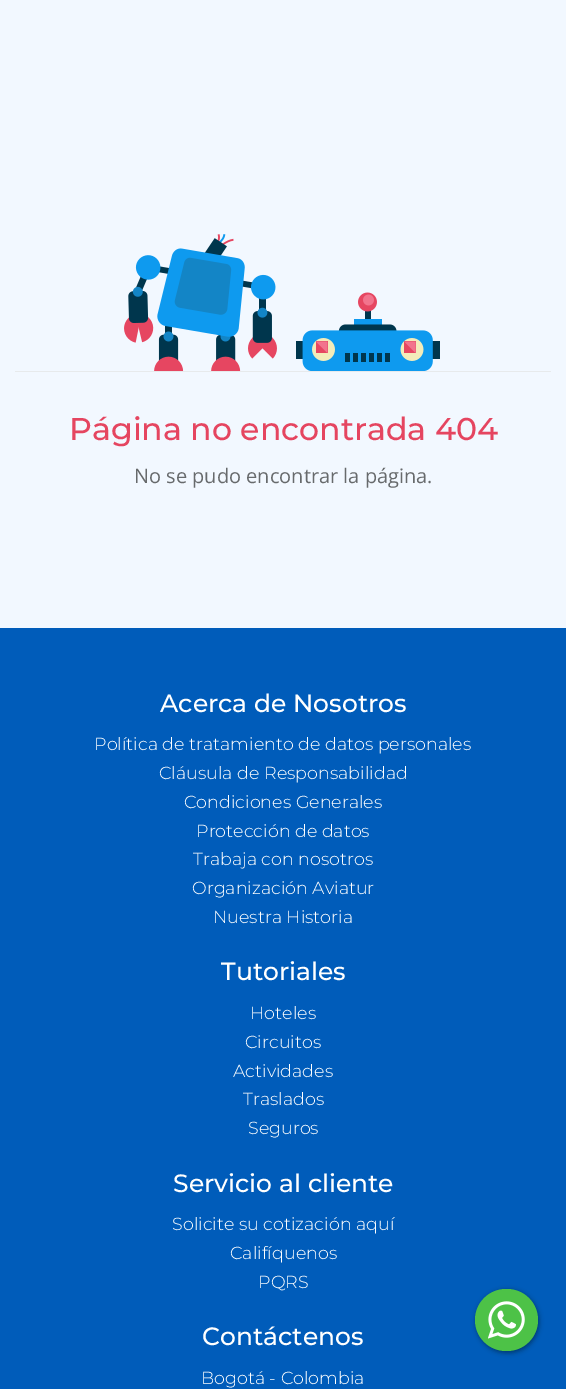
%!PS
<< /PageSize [566 1389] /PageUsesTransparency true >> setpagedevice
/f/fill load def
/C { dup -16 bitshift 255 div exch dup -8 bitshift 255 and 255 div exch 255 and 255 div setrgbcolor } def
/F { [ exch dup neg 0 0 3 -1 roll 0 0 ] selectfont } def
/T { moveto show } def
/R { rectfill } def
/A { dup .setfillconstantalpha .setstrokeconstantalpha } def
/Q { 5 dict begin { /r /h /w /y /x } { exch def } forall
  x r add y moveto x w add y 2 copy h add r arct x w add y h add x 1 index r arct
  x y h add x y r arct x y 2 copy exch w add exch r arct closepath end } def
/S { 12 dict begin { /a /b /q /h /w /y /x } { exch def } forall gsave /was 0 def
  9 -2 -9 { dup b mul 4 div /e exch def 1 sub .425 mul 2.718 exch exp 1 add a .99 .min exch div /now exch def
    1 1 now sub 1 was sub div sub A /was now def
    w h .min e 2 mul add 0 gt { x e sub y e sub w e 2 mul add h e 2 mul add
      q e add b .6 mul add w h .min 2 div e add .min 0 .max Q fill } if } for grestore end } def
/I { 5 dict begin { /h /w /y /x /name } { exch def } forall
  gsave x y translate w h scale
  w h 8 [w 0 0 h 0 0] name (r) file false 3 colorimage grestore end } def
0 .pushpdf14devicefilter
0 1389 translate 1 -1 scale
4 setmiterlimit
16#F2F8FF C
0 0 566 1389 R
(1.rgb) 124 234 316 137 I
16#E7EAEC C
15 371 536 1 R
/Montserrat-Medium 31.6 F
16#E54560 C
(Página no encontrada 404) 69 440 T
/OpenSans-Regular 20 F
16#676A6C C
(No se pudo encontrar la página.) 134 483 T
16#005CBA C
0 628 566 761 R
/Montserrat-Medium 25 F
16#FFFFFF C
(Acerca de Nosotros) 160 712 T
/Montserrat-Light 17.5 F
(Política de tratamiento de datos personales) 94 750 T
(Cláusula de Responsabilidad) 159 779 T
(Condiciones Generales) 184 808 T
(Protección de datos) 196 837 T
(Trabaja con nosotros) 193 865 T
(Organización Aviatur) 192 894 T
(Nuestra Historia) 213 923 T
/Montserrat-Medium 25 F
(Tutoriales) 221 980 T
/Montserrat-Light 17.5 F
(Hoteles) 250 1019 T
(Circuitos) 245 1048 T
(Actividades) 233 1077 T
(Traslados) 243 1105 T
(Seguros) 248 1134 T
/Montserrat-Medium 25 F
(Servicio al cliente) 173 1192 T
/Montserrat-Light 17.5 F
(Solicite su cotización aquí) 172 1230 T
(Califíquenos) 230 1259 T
(PQRS) 258 1288 T
/Montserrat-Medium 25 F
(Contáctenos) 202 1345 T
/Montserrat-Light 17.5 F
(Bogotá - Colombia) 201 1384 T
16#000000 C
476 1290 63 63 31.5 2.5 .4 S
16#4DC247 C
475 1289 63 62 31 Q f
(2.rgb) 488 1301 37 38 I
.poppdf14devicefilter showpage
